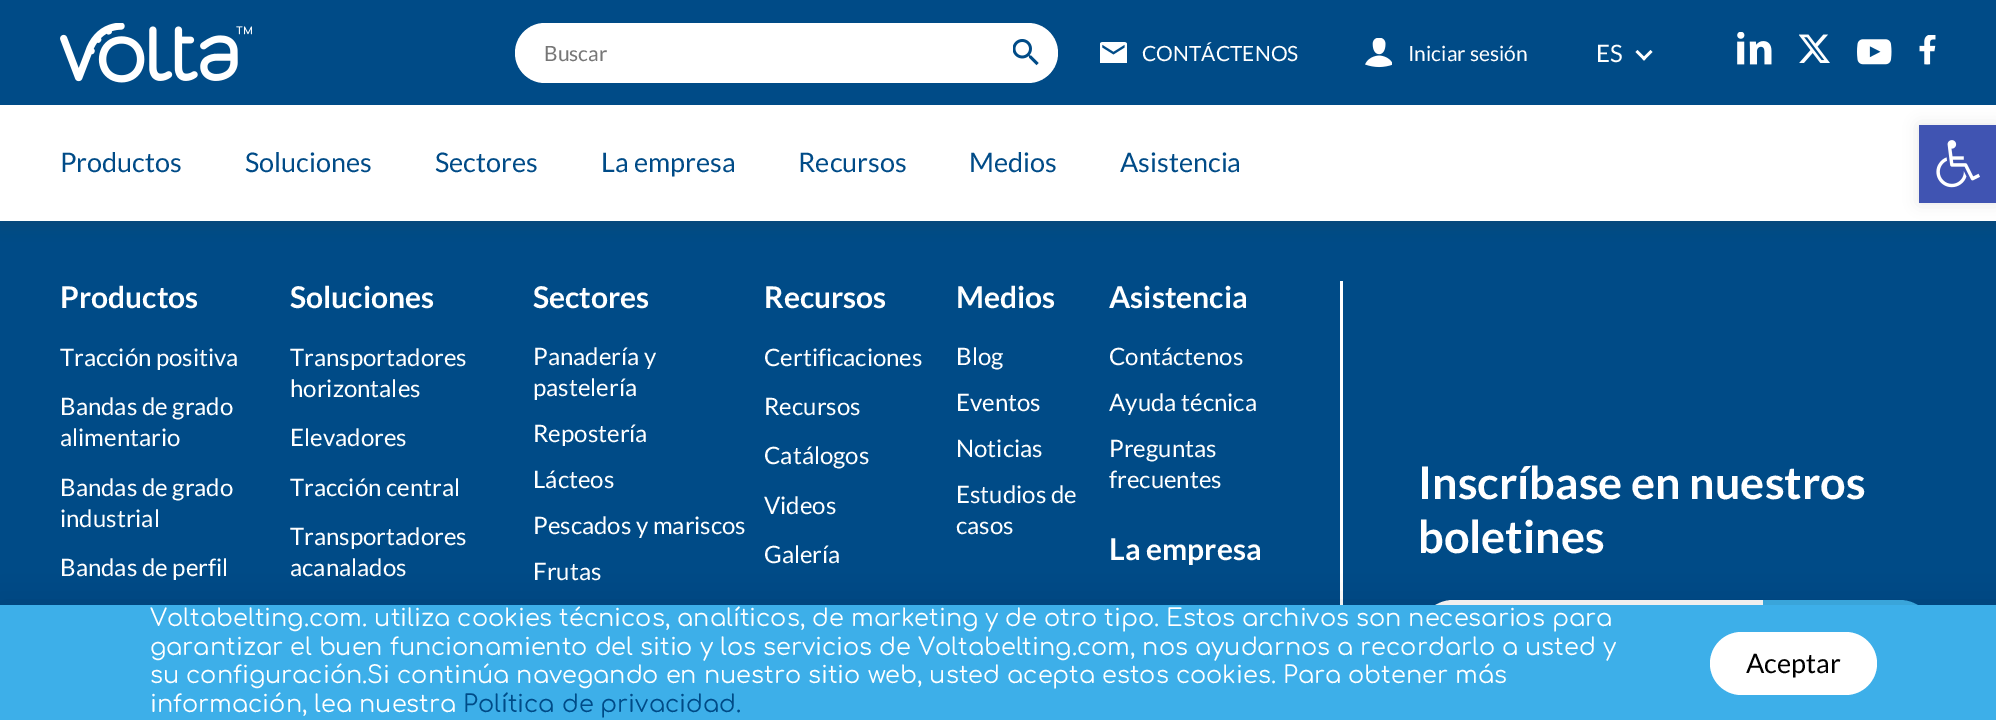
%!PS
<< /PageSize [1996 720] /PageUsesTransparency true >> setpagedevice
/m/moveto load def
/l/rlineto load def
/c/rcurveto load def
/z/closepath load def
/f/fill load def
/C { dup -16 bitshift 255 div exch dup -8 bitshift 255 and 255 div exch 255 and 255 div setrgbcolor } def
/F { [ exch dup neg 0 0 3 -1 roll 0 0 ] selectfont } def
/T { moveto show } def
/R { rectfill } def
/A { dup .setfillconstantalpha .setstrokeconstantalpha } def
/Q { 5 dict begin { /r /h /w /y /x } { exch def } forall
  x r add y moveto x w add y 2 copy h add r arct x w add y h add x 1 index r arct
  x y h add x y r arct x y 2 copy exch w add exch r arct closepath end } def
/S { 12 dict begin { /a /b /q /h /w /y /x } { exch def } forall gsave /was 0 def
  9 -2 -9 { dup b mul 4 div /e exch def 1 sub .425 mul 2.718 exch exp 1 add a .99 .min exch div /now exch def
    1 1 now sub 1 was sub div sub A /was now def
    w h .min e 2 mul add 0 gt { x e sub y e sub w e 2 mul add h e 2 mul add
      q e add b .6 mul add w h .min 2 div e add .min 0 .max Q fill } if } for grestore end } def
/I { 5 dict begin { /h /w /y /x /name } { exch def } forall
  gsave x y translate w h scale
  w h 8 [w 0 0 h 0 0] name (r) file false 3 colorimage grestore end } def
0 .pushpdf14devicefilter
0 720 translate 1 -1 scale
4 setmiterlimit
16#004B87 C
0 0 1996 720 R
16#363636 C
0 5 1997 220 0 7.5 .2 S
16#FFFFFF C
0 105 1996 116 R
16#004B87 C
0 0 1996 105 R
(1.rgb) 60 23 192 60 I
16#FFFFFF C
515 23 543 60 30 Q f
/Lato-Regular 21 F
16#767676 C
(Buscar) 544 61 T
(2.rgb) 1013 39 26 27 I
(3.rgb) 1100 42 27 21 I
16#FFFFFF C
(CONTÁCTENOS) 1142 61 T
(4.rgb) 1365 38 27 30 I
(Iniciar sesión) 1408 61 T
/Lato-Regular 24 F
(ES) 1596 62 T
1652.5 52 m -8.5 8.5 l -2 -2 l 8.5 -8.5 l z f
1646 58.5 m -2 2 l -8.5 -8.5 l 2 -2 l z f
(5.rgb) 1737 32 35 33 I
(6.rgb) 1799 34 31 29 I
(7.rgb) 1857 39 35 26 I
(8.rgb) 1919 35 17 30 I
/Lato-Regular 27 F
16#004B87 C
(Productos) 60 172 T
(Soluciones) 245 172 T
(Sectores) 435 172 T
(La empresa) 601 172 T
(Recursos) 798 172 T
(Medios) 969 172 T
(Asistencia) 1120 172 T
16#000000 C
1919 125 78 78 0 7.5 .1 S
16#4054B2 C
1919 125 77 78 R
(9.rgb) 1936 140 44 48 I
/Lato-Bold 30 F
16#FFFFFF C
(Productos) 60 308 T
/Lato-Regular 24 F
(Tracción positiva) 60 366 T
(Bandas de grado) 60 415 T
(alimentario) 60 446 T
(Bandas de grado) 60 496 T
(industrial) 60 527 T
(Bandas de perfil) 60 576 T
/Lato-Bold 30 F
(Soluciones) 290 308 T
/Lato-Regular 24 F
(Transportadores) 290 366 T
(horizontales) 290 397 T
(Elevadores) 290 446 T
(Tracción central) 290 496 T
(Transportadores) 290 545 T
(acanalados) 290 576 T
/Lato-Bold 30 F
(Sectores) 533 308 T
/Lato-Regular 24 F
(Panadería y) 533 365 T
(pastelería) 533 396 T
(Repostería) 533 442 T
(Lácteos) 533 488 T
(Pescados y mariscos) 533 534 T
(Frutas) 533 580 T
/Lato-Bold 30 F
(Recursos) 764 308 T
/Lato-Regular 24 F
(Certificaciones) 764 366 T
(Recursos) 764 415 T
(Catálogos) 764 464 T
(Videos) 764 514 T
(Galería) 764 563 T
/Lato-Bold 30 F
(Medios) 956 308 T
/Lato-Regular 24 F
(Blog) 956 365 T
(Eventos) 956 411 T
(Noticias) 956 457 T
(Estudios de) 956 503 T
(casos) 956 534 T
/Lato-Bold 30 F
(Asistencia) 1109 308 T
/Lato-Regular 24 F
(Contáctenos) 1109 365 T
(Ayuda técnica) 1109 411 T
(Preguntas) 1109 457 T
(frecuentes) 1109 488 T
/Lato-Bold 30 F
(La empresa) 1109 560 T
1340 281 3 324 R
/Lato-Bold 45 F
(Inscríbase en nuestros) 1418 499 T
(boletines) 1418 553 T
1453.5 600 m 309.5 0 l 0 71 l -309.5 0 l -19.5 0 -35.5 -16 -35.5 -35.5 c 0 -19.5 16 -35.5 35.5 -35.5 c z f
16#3DAFE9 C
1763 600 m 136.5 0 l 19.5 0 35.5 16 35.5 35.5 c 0 19.5 -16 35.5 -35.5 35.5 c -136.5 0 l z f
16#000000 C
-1 612 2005 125 0 17 .2 S
16#3DAFE9 C
0 605 1996 115 R
/Comfortaa-Regular 24 F
16#FFFFFF C
(Voltabelting.com. utiliza cookies técnicos, analíticos, de marketing y de otro tipo. Estos archivos son necesarios para) 150 626 T
(garantizar el buen funcionamiento del sitio y los servicios de Voltabelting.com, nos ayudarnos a recordarlo a usted y) 150 655 T
(su configuración.Si continúa navegando en nuestro sitio web, usted acepta estos cookies. Para obtener más) 150 683 T
(información, lea nuestra) 150 712 T
16#004B87 C
(Política de privacidad.) 463 712 T
16#FFFFFF C
1710 632 167 63 31.5 Q f
/Lato-Regular 27 F
16#000000 C
(Aceptar) 1746 673 T
.poppdf14devicefilter showpage
